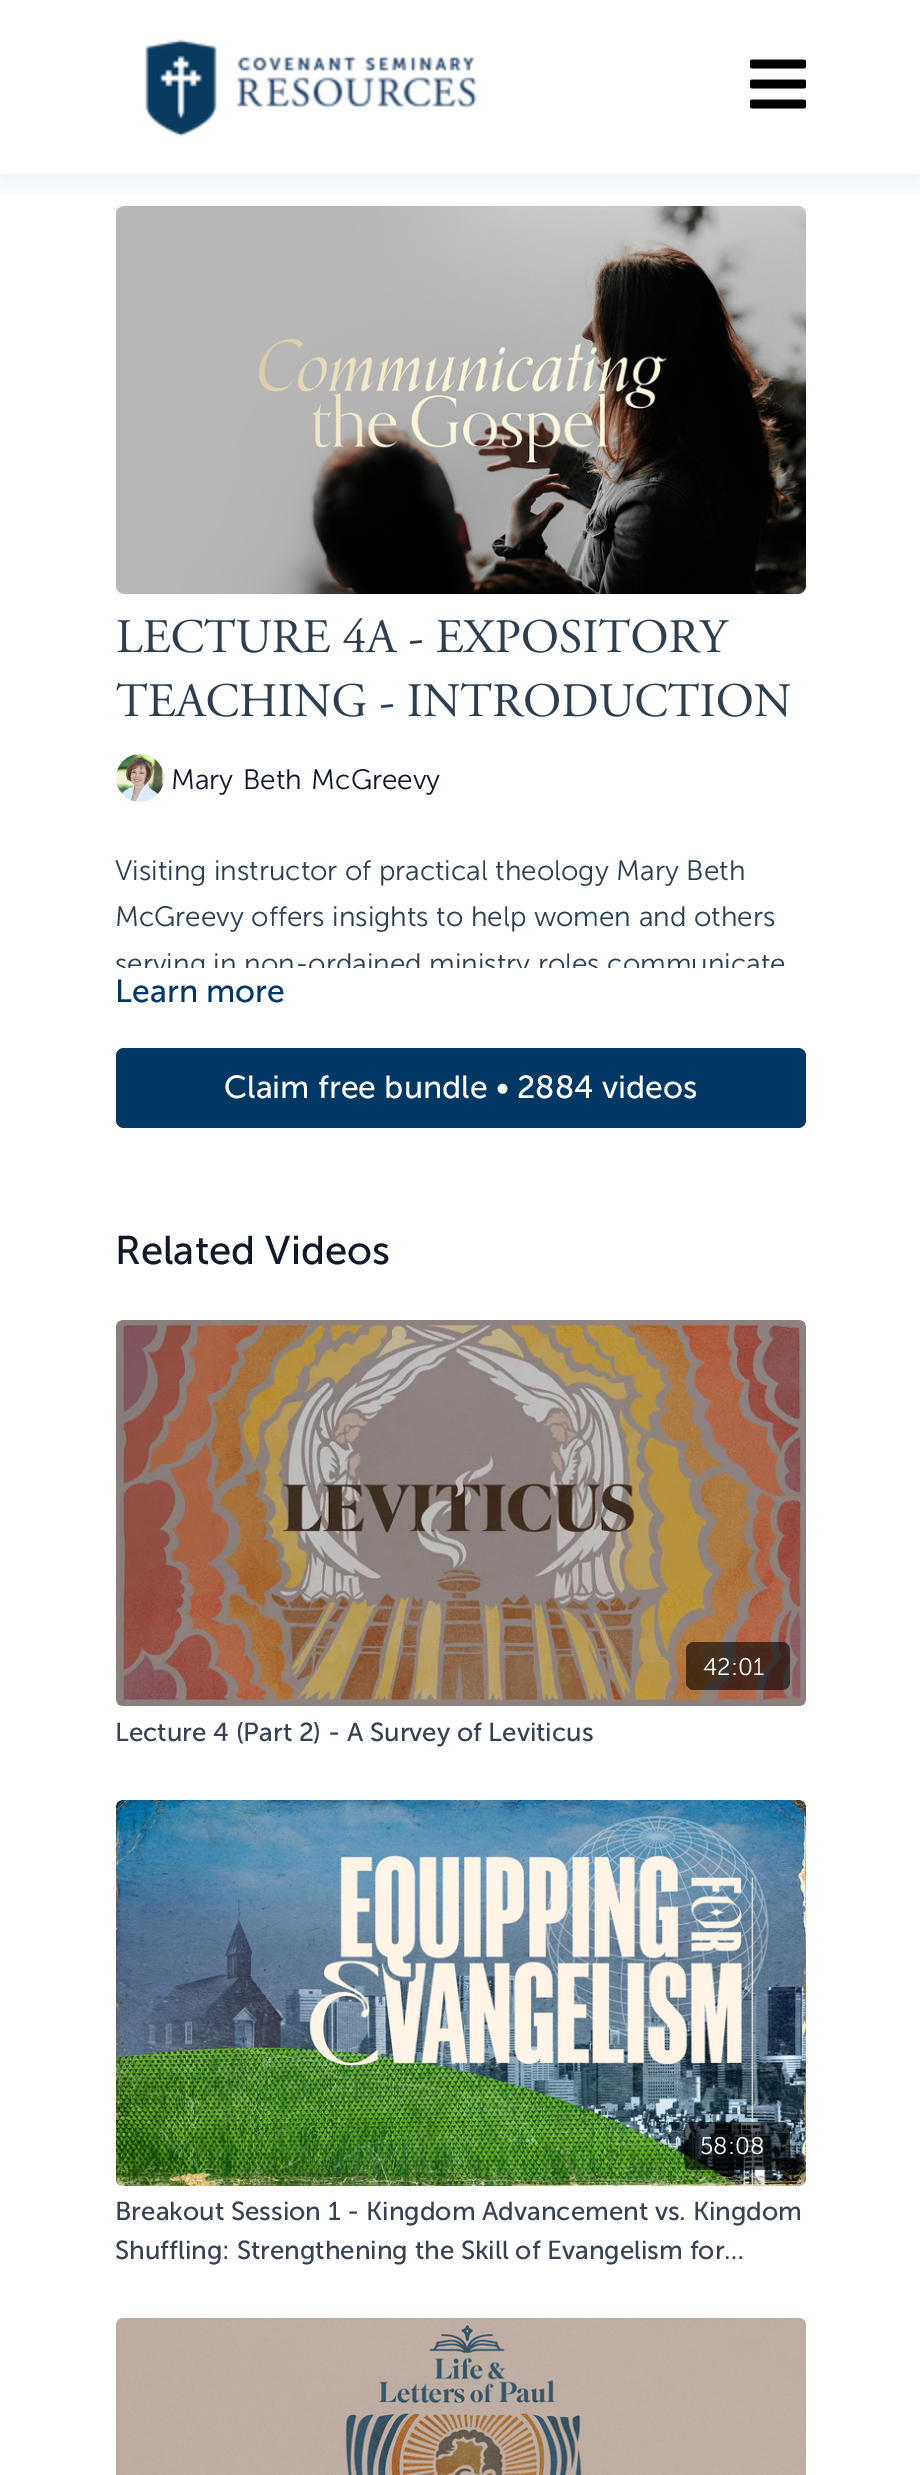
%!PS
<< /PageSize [920 2475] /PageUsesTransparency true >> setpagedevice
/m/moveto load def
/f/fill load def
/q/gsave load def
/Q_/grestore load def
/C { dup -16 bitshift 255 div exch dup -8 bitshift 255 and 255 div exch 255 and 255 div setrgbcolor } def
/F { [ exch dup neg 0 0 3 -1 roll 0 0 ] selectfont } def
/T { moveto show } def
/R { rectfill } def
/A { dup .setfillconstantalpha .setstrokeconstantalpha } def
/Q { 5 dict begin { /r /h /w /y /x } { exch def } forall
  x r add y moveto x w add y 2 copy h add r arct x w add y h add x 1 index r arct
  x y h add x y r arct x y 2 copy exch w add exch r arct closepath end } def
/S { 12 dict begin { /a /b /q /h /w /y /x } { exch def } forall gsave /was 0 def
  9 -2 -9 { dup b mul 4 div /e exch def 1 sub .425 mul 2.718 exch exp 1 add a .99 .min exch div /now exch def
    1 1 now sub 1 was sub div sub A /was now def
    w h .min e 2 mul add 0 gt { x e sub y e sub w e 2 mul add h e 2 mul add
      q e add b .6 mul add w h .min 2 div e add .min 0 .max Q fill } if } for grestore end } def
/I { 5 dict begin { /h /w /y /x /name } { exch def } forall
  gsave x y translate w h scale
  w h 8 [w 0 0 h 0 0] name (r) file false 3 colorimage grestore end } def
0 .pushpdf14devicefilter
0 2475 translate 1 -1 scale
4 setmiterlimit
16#FFFFFF C
0 0 920 2475 R
(3.rgb) 116 206 690 388 I
q
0 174 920 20 rectclip
16#0E5A88 C
0 10 920 174 0 15 .08 S
Q_
(1.rgb) 145 39 332 98 I
(2.rgb) 750 59 56 50 I
(4.rgb) 117 618 612 35 I
(5.rgb) 116 682 674 35 I
(6.rgb) 116 754 48 48 I
/MuseoSans-Light 28 F
16#111827 C
171 789 m 2 0 32 (Mary Beth McGreevy) widthshow
16#2C3E50 C
(Visiting instructor of practical theology Mary Beth) 115 880 T
(McGreevy offers insights to help women and others) 115 926 T
q
116 848 690 120 rectclip
(serving in non-ordained ministry roles communicate) 115 973 T
Q_
/MuseoSans-Regular 32 F
16#003865 C
(Learn more) 115 1002 T
116 1048 690 80 8 Q f
16#FFFFFF C
(Claim free bundle • 2884 videos) 224 1098 T
/MuseoSans-Regular 40 F
16#111827 C
(Related Videos) 115 1264 T
(7.rgb) 116 1320 690 386 I
0.6 A
16#000000 C
686 1642 104 48 8 Q f
/MuseoSans-Light 24 F
1 A
16#FFFFFF C
(42:01) 703 1675 T
/MuseoSans-Regular 26 F
16#374151 C
(Lecture 4 \(Part 2\) - A Survey of Leviticus) 115 1741 T
(8.rgb) 116 1800 690 386 I
0.6 A
16#000000 C
684 2122 106 48 8 Q f
/MuseoSans-Light 24 F
1 A
16#FFFFFF C
(58:08) 700 2154 T
/MuseoSans-Regular 26 F
16#374151 C
(Breakout Session 1 - Kingdom Advancement vs. Kingdom) 115 2220 T
(Shuffling: Strengthening the Skill of Evangelism for…) 115 2259 T
(9.rgb) 116 2318 690 157 I
.poppdf14devicefilter showpage
